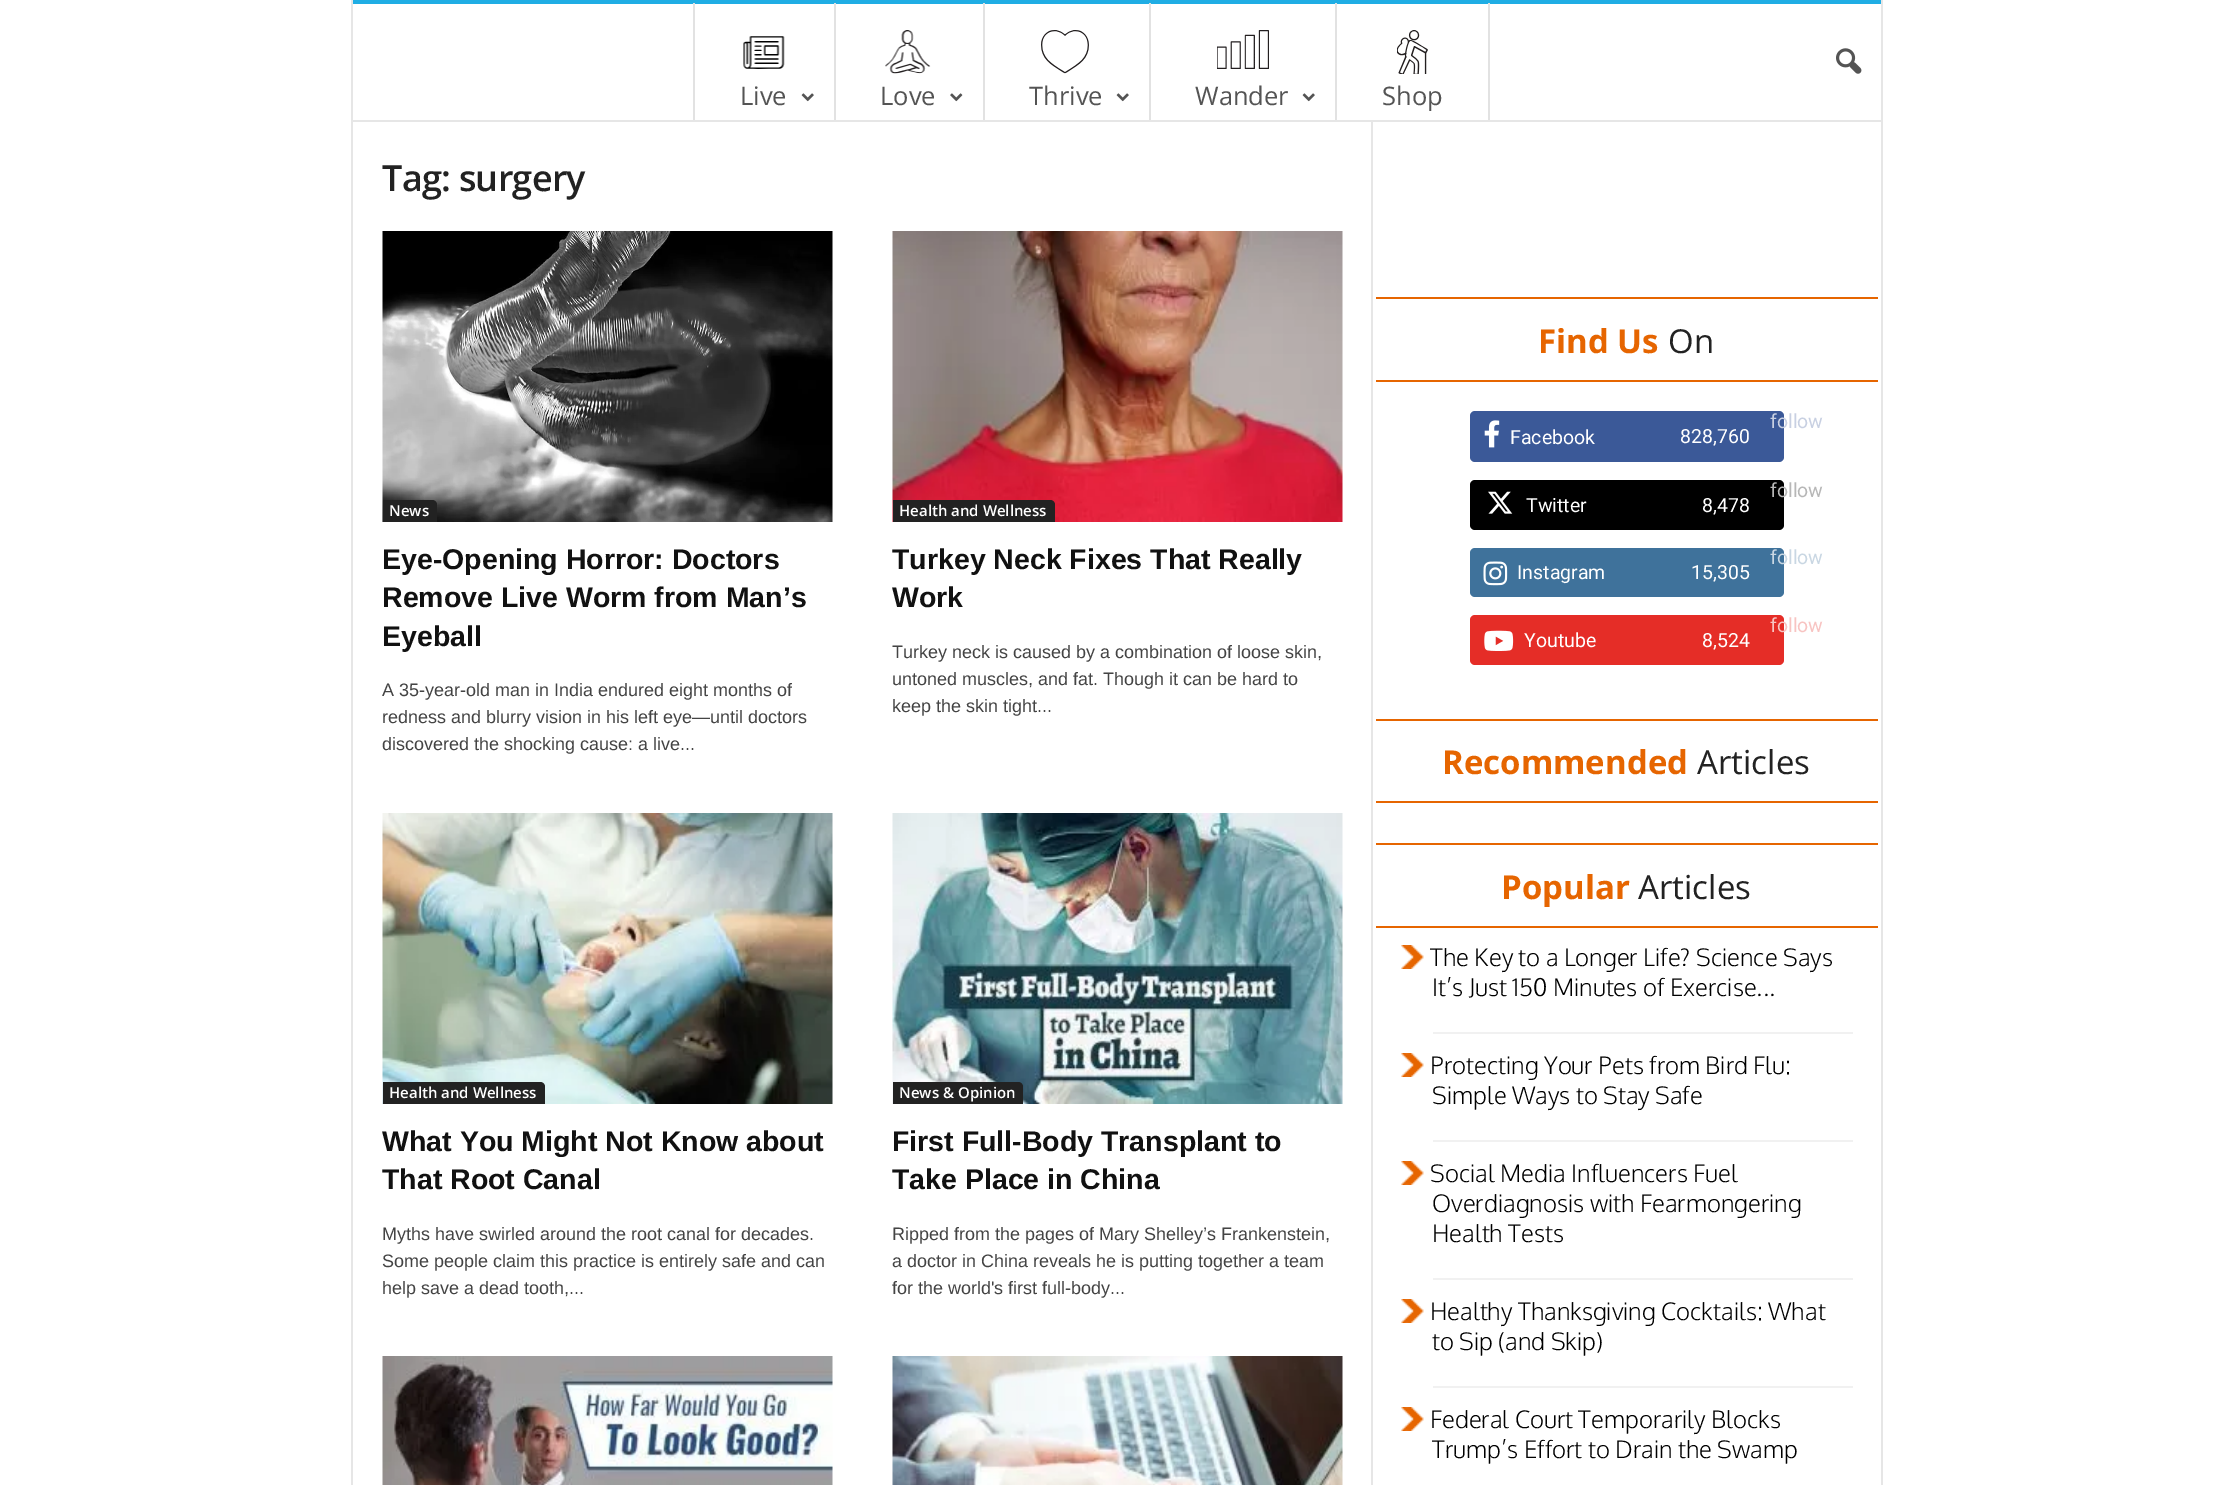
%!PS
<< /PageSize [2231 1485] >> setpagedevice
/m/moveto load def
/l/rlineto load def
/c/rcurveto load def
/z/closepath load def
/f/fill load def
/C { dup -16 bitshift 255 div exch dup -8 bitshift 255 and 255 div exch 255 and 255 div setrgbcolor } def
/F { [ exch dup neg 0 0 3 -1 roll 0 0 ] selectfont } def
/T { moveto show } def
/R { rectfill } def
/Q { 5 dict begin { /r /h /w /y /x } { exch def } forall
  x r add y moveto x w add y 2 copy h add r arct x w add y h add x 1 index r arct
  x y h add x y r arct x y 2 copy exch w add exch r arct closepath end } def
/I { 5 dict begin { /h /w /y /x /name } { exch def } forall
  gsave x y translate w h scale
  w h 8 [w 0 0 h 0 0] name (r) file false 3 colorimage grestore end } def
0 1485 translate 1 -1 scale
4 setmiterlimit
16#FFFFFF C
0 0 2231 1485 R
16#E6E6E6 C
1881 0 2 1485 R
351 120 1532 2 R
351 0 2 122 R
16#1FADE4 C
353 0 1528 4 R
(1.rgb) 1836 48 26 26 I
16#E2E2E2 C
834 3 2 117 R
693 3 2 117 R
(2.rgb) 743 36 42 33 I
/OpenSans-Regular 25.5 F
16#545454 C
(Live) 740 105 T
(3.rgb) 801 93 13 9 I
16#E2E2E2 C
983 3 2 117 R
(4.rgb) 885 30 46 44 I
16#545454 C
(Love) 880 105 T
(5.rgb) 950 93 13 9 I
16#E2E2E2 C
1149 3 2 117 R
(6.rgb) 1041 30 48 44 I
16#545454 C
(Thrive) 1029 105 T
(3.rgb) 1116 93 13 9 I
16#E2E2E2 C
1335 3 2 117 R
(7.rgb) 1217 30 52 39 I
16#545454 C
(Wander) 1195 105 T
(3.rgb) 1302 93 13 9 I
16#E2E2E2 C
1488 3 2 117 R
(8.rgb) 1397 30 31 44 I
16#545454 C
(Shop) 1382 105 T
16#E6E6E6 C
351 122 2 1363 R
/OpenSans-SemiBold 36 F
16#222222 C
382 191 m -.75 0 (Tag: surgery) ashow
(9.rgb) 382 231 451 291 I
383 500 m 49 0 l 3 0 5 2 5 5 c 0 17 l -54 0 l z f
/OpenSans-SemiBold 15 F
16#FFFFFF C
(News) 389 516 T
/LiberationSans-Bold 28.5 F
16#111111 C
(Eye-Opening Horror: Doctors) 382 569 T
(Remove Live Worm from Man’s) 382 607 T
(Eyeball) 382 646 T
/LiberationSans-Regular 18 F
16#444444 C
(A 35-year-old man in India endured eight months of) 382 696 T
(redness and blurry vision in his left eye—until doctors) 382 723 T
(discovered the shocking cause: a live...) 382 750 T
(10.rgb) 892 231 451 291 I
16#222222 C
893 500 m 157 0 l 3 0 5 2 5 5 c 0 17 l -162 0 l z f
/OpenSans-SemiBold 15 F
16#FFFFFF C
(Health and Wellness) 899 516 T
/LiberationSans-Bold 28.5 F
16#111111 C
(Turkey Neck Fixes That Really) 892 569 T
(Work) 892 607 T
/LiberationSans-Regular 18 F
16#444444 C
(Turkey neck is caused by a combination of loose skin,) 892 658 T
(untoned muscles, and fat. Though it can be hard to) 892 685 T
(keep the skin tight...) 892 712 T
(11.rgb) 382 813 451 291 I
16#222222 C
383 1082 m 157 0 l 3 0 5 2 5 5 c 0 17 l -162 0 l z f
/OpenSans-SemiBold 15 F
16#FFFFFF C
(Health and Wellness) 389 1098 T
/LiberationSans-Bold 28.5 F
16#111111 C
(What You Might Not Know about) 382 1151 T
(That Root Canal) 382 1189 T
/LiberationSans-Regular 18 F
16#444444 C
(Myths have swirled around the root canal for decades.) 382 1240 T
(Some people claim this practice is entirely safe and can) 382 1267 T
(help save a dead tooth,...) 382 1294 T
(12.rgb) 892 813 451 291 I
16#222222 C
893 1082 m 125 0 l 3 0 5 2 5 5 c 0 17 l -130 0 l z f
/OpenSans-SemiBold 15 F
16#FFFFFF C
(News & Opinion) 899 1098 T
/LiberationSans-Bold 28.5 F
16#111111 C
(First Full-Body Transplant to) 892 1151 T
(Take Place in China) 892 1189 T
/LiberationSans-Regular 18 F
16#444444 C
(Ripped from the pages of Mary Shelley’s Frankenstein,) 892 1240 T
(a doctor in China reveals he is putting together a team) 892 1267 T
(for the world's first full-body...) 892 1294 T
(13.rgb) 382 1356 451 129 I
(14.rgb) 892 1356 451 129 I
16#E6E6E6 C
1371 122 2 1363 R
16#E66500 C
1376 297 502 2 R
1376 380 502 2 R
/OpenSans-Bold 33 F
(Find Us) 1538 353 T
/OpenSans-Regular 33 F
16#222222 C
(On) 1668 353 T
16#3B5998 C
1470 411 314 51 5 Q f
/Roboto-Regular 19.5 F
16#C8D0E2 C
(follow) 1770 428 T
(15.rgb) 1484 420 16 28 I
16#FFFFFF C
(Facebook) 1510 444 T
(828,760) 1680 443 T
16#000000 C
1470 480 314 50 5 Q f
16#B7B7B7 C
(follow) 1770 497 T
(16.rgb) 1488 491 25 23 I
16#FFFFFF C
(Twitter) 1526 512 T
(8,478) 1702 512 T
16#3F729B C
1470 548 314 49 5 Q f
16#C9D7E3 C
(follow) 1770 564 T
(17.rgb) 1483 561 25 25 I
16#FFFFFF C
(Instagram) 1517 579 T
(15,305) 1691 579 T
16#E52D27 C
1470 615 314 50 5 Q f
16#F8C4C2 C
(follow) 1770 632 T
(18.rgb) 1484 630 30 21 I
16#FFFFFF C
(Youtube) 1524 647 T
(8,524) 1702 647 T
16#E66500 C
1376 719 502 2 R
1376 801 502 2 R
/OpenSans-Bold 33 F
(Recommended) 1442 774 T
/OpenSans-Regular 33 F
16#222222 C
(Articles) 1697 774 T
16#E66500 C
1376 843 502 2 R
1376 926 502 2 R
/OpenSans-Bold 33 F
(Popular) 1501 899 T
/OpenSans-Regular 33 F
16#222222 C
(Articles) 1638 899 T
16#F1F1F1 C
1433 1032 420 2 R
(19.rgb) 1401 945 23 24 I
/Oxygen-Light 24 F
16#000000 C
(The Key to a Longer Life? Science Says) 1430 966 T
(It’s Just 150 Minutes of Exercise...) 1432 996 T
16#F1F1F1 C
1433 1140 420 2 R
(19.rgb) 1401 1053 23 24 I
16#000000 C
(Protecting Your Pets from Bird Flu:) 1430 1074 T
(Simple Ways to Stay Safe) 1432 1104 T
16#F1F1F1 C
1433 1278 420 2 R
(19.rgb) 1401 1161 23 24 I
16#000000 C
(Social Media Influencers Fuel) 1430 1182 T
(Overdiagnosis with Fearmongering) 1432 1212 T
(Health Tests) 1432 1242 T
16#F1F1F1 C
1433 1386 420 2 R
(19.rgb) 1401 1299 23 24 I
16#000000 C
(Healthy Thanksgiving Cocktails: What) 1430 1320 T
(to Sip \(and Skip\)) 1432 1350 T
(19.rgb) 1401 1407 23 24 I
(Federal Court Temporarily Blocks) 1430 1428 T
(Trump’s Effort to Drain the Swamp) 1432 1458 T
showpage
